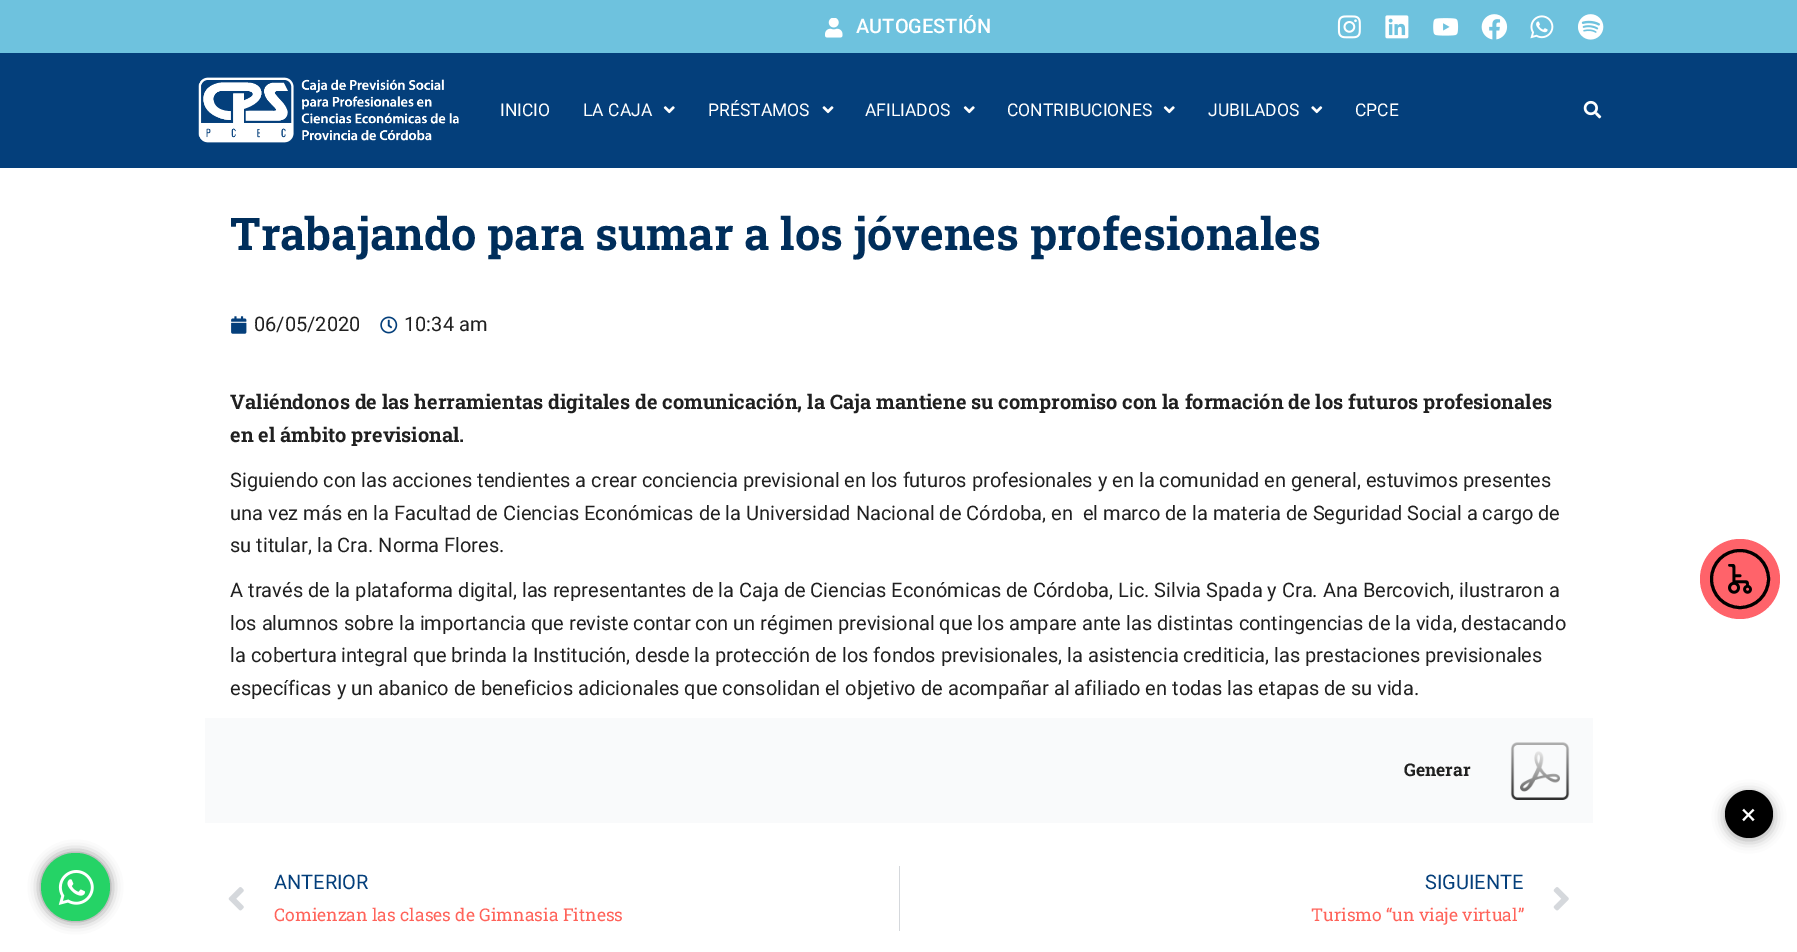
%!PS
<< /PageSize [1797 952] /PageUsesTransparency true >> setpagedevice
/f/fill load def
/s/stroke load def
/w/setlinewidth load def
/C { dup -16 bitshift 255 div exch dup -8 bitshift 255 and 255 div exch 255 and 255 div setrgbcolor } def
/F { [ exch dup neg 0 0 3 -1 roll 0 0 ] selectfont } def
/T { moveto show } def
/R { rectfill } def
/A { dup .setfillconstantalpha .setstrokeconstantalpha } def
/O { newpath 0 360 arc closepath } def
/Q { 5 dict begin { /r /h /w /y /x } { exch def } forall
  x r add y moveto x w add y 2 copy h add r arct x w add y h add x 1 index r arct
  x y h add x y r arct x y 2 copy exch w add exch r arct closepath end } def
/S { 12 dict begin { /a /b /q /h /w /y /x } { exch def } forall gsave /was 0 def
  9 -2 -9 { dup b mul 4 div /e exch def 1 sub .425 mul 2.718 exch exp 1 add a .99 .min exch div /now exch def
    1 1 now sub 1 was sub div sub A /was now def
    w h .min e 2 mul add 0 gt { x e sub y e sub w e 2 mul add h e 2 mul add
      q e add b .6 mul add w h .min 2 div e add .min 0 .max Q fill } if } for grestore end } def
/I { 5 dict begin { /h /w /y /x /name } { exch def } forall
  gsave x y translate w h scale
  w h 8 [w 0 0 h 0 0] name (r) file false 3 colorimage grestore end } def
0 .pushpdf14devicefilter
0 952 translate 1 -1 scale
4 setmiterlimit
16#FFFFFF C
0 0 1797 952 R
16#6EC2DE C
0 0 1797 53 R
(1.rgb) 825 18 18 20 I
/Roboto-Medium 20 F
16#FFFFFF C
(AUTOGESTIÓN) 856 33 T
(2.rgb) 1337 15 24 24 I
(3.rgb) 1385 15 24 24 I
(4.rgb) 1433 18 26 18 I
(5.rgb) 1481 14 27 26 I
(6.rgb) 1530 15 24 24 I
(7.rgb) 1578 14 26 26 I
16#043F7B C
0 53 1797 115 R
(8.rgb) 198 77 261 66 I
/Roboto-Regular 17.5 F
16#FFFFFF C
(INICIO) 500 116 T
(LA CAJA) 583 116 T
(9.rgb) 663 106 12 8 I
(PRÉSTAMOS) 708 116 T
(10.rgb) 822 106 12 8 I
(AFILIADOS) 865 116 T
(9.rgb) 963 106 12 8 I
(CONTRIBUCIONES) 1007 116 T
(9.rgb) 1163 106 12 8 I
(JUBILADOS) 1208 116 T
(11.rgb) 1311 106 12 8 I
(CPCE) 1355 116 T
(12.rgb) 1583 100 19 19 I
/RobotoSlab-Bold 45 F
16#002E5B C
(Trabajando para sumar a los jóvenes profesionales) 230 250 T
(13.rgb) 231 316 16 18 I
/Roboto-Regular 20 F
16#202020 C
(06/05/2020) 254 331 T
(14.rgb) 380 316 18 18 I
(10:34 am) 404 331 T
/RobotoSlab-Bold 20 F
(Valiéndonos de las herramientas digitales de comunicación, la Caja mantiene su compromiso con la formación de los futuros profesionales) 230 409 T
(en el ámbito previsional.) 230 442 T
/Roboto-Regular 20 F
(Siguiendo con las acciones tendientes a crear conciencia previsional en los futuros profesionales y en la comunidad en general, estuvimos presentes) 230 487 T
(una vez más en la Facultad de Ciencias Económicas de la Universidad Nacional de Córdoba, en  el marco de la materia de Seguridad Social a cargo de) 230 520 T
(su titular, la Cra. Norma Flores.) 230 552 T
(A través de la plataforma digital, las representantes de la Caja de Ciencias Económicas de Córdoba, Lic. Silvia Spada y Cra. Ana Bercovich, ilustraron a) 230 597 T
(los alumnos sobre la importancia que reviste contar con un régimen previsional que los ampare ante las distintas contingencias de la vida, destacando) 230 630 T
(la cobertura integral que brinda la Institución, desde la protección de los fondos previsionales, la asistencia crediticia, las prestaciones previsionales) 230 662 T
(específicas y un abanico de beneficios adicionales que consolidan el objetivo de acompañar al afiliado en todas las etapas de su vida.) 230 695 T
16#F9FAFB C
205 718 1388 105 R
/RobotoSlab-Bold 17.5 F
16#202020 C
(Generar) 1404 776 T
(15.rgb) 1510 742 60 58 I
(16.rgb) 228 887 16 24 I
/Roboto-Regular 20 F
16#043F7B C
(ANTERIOR) 274 889 T
/RobotoSlab-Regular 17.5 F
16#FF635A C
(Comienzan las clases de Gimnasia Fitness) 274 921 T
16#D5D8DC C
899 866 1 65 R
/Roboto-Regular 20 F
16#043F7B C
(SIGUIENTE) 1425 889 T
/RobotoSlab-Regular 17.5 F
16#FF635A C
(Turismo “un viaje virtual”) 1311 921 T
(17.rgb) 1553 887 16 24 I
16#FF636A C
1740 579 40 O f
16#000000 C
3 w
1740 579 28.5 O s
(18.rgb) 1728 564 24 30 I
1725 793 48 47 23.5 6 .35 S
1749 814 24 O f
/Roboto-Regular 28 F
16#FFFFFF C
(×) 1741 824 T
16#000000 C
41 853 69 68 34 6 .5 S
16#25D366 C
41 853 69 68 34 Q f
(19.rgb) 58 870 36 35 I
.poppdf14devicefilter showpage
